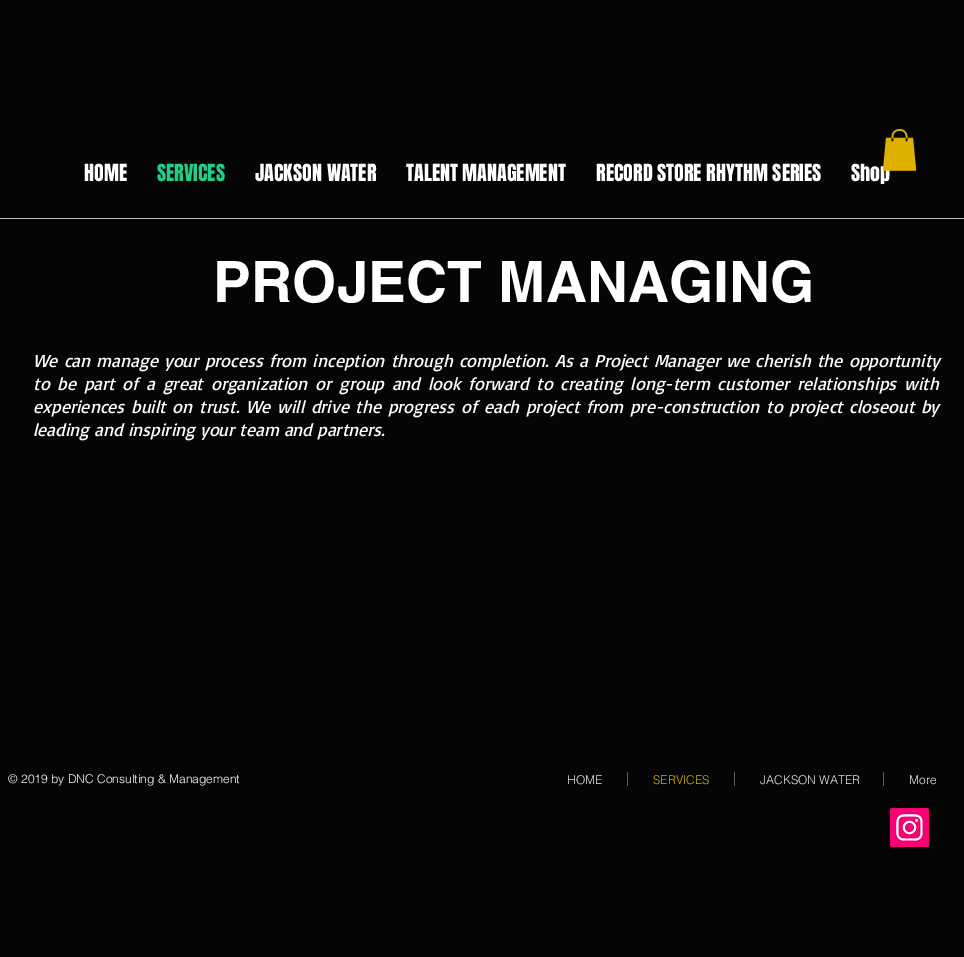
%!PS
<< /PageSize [964 957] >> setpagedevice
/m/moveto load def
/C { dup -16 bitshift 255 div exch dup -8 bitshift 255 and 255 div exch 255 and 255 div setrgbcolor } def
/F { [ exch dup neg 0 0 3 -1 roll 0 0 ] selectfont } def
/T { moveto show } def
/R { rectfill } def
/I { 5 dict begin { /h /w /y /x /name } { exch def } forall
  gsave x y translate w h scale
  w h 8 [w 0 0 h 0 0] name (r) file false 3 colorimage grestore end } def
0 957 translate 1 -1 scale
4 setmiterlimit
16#050505 C
0 0 964 957 R
/Anton-Regular 20 F
16#FFFFFF C
(Shop) 851 181 T
(1.rgb) 882 129 35 42 I
(HOME) 84 181 T
16#20CE88 C
(SERVICES) 157 181 T
16#FFFFFF C
(JACKSON WATER) 255 181 T
(TALENT MANAGEMENT) 406 181 T
(RECORD STORE RHYTHM SERIES) 596 181 T
16#C1C1C1 C
0 218 964 1 R
/helvetica-Bold 57 F
16#FFFFFF C
(PROJECT MANAGING) 213 302 T
/Basic-Italic 18 F
33 367 m 1.25 0 32 (We can manage your process from inception through completion. As a Project Manager we cherish the opportunity) widthshow
33 390 m 2.75 0 32 (to be part of a great organization or group and look forward to creating long-term customer relationships with) widthshow
33 413 m 1.7 0 32 (experiences built on trust. We will drive the progress of each project from pre-construction to project closeout by) widthshow
(leading and inspiring your team and partners.) 33 436 T
/helvetica-Light 12 F
(© 2019 by DNC Consulting & Management) 8 783 T
16#ECECEC C
(HOME) 567 784 T
16#5D5D5D C
627 772 1 14 R
16#DEB100 C
(SERVICES) 653 784 T
16#5D5D5D C
734 772 1 14 R
16#ECECEC C
(JACKSON WATER) 760 784 T
16#5D5D5D C
883 772 1 14 R
16#ECECEC C
(More) 909 784 T
(2.rgb) 890 808 39 39 I
showpage
